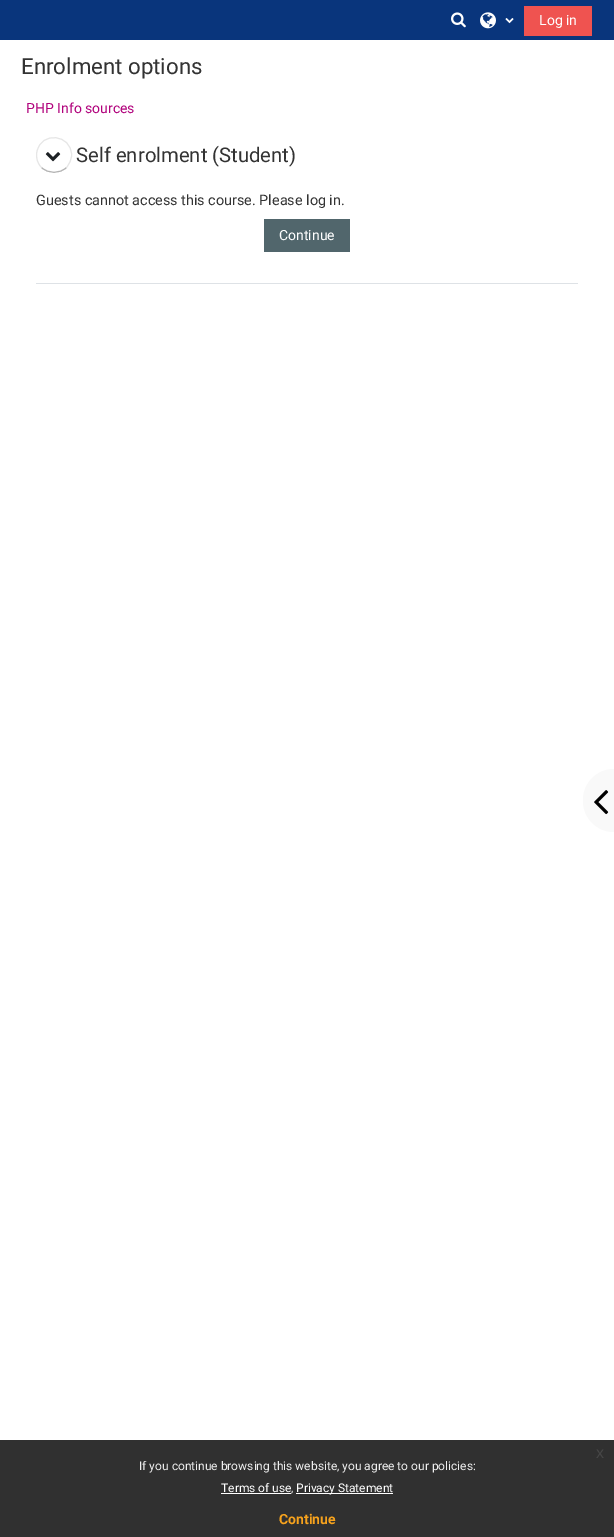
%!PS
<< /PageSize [614 1537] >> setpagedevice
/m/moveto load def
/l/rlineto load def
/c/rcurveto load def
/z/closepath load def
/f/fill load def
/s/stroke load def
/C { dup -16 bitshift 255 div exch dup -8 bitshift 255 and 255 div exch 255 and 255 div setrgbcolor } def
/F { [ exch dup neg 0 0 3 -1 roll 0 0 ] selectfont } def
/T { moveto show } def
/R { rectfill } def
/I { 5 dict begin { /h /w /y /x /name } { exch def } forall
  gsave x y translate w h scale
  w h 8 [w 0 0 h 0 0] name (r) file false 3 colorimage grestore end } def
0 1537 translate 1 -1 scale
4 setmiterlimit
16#FFFFFF C
0 0 614 1537 R
16#09357C C
0 0 614 40 R
(1.rgb) 451 12 15 16 I
(2.rgb) 480 12 16 17 I
(3.rgb) 505 18 9 6 I
16#EF5350 C
524 6 68 30 R
/Roboto-Regular 14 F
16#FFFFFF C
(Log in) 539 25 T
/Roboto-Regular 22.25 F
16#333333 C
(Enrolment options) 21 74 T
/Roboto-Regular 14 F
16#B1027C C
(PHP Info sources) 26 113 T
16#DEE2E6 C
36 283 542 1 R
16#B3B3B3 C
66.5 167.5 m -7 6.5 -18 6.5 -25 0 c s
16#E6E6E6 C
41.5 167.5 m -4 -4 -6 -10 -4.5 -16 c 4 -20.5 34.5 -17.5 34.5 3.5 c 0 4.5 -2 9 -5 12.5 c s
(4.rgb) 45 152 16 10 I
/Roboto-Regular 20.25 F
16#333333 C
(Self enrolment \(Student\)) 76 162 T
/Roboto-Regular 14.4 F
(Guests cannot access this course. Please log in.) 36 205 T
16#51666C C
264 219 86 33 R
/Roboto-Regular 14 F
16#FFFFFF C
(Continue) 279 240 T
16#F9F9F9 C
614 769 m 0 63 l -17 0 -31 -14 -31 -31 c 0 -1 l 0 -17 14 -31 31 -31 c z f
(5.rgb) 594 790 15 25 I
16#303030 C
0 1440 614 97 R
/LiberationSans-Regular 16 F
16#474747 C
(x) 596 1458 T
/Roboto-Regular 12 F
16#EFEFEF C
(If you continue browsing this website, you agree to our policies:) 139 1470 T
16#FFFFFF C
(Terms of use) 221 1492 T
221 1493 70 1 R
16#EFEFEF C
(,) 291 1492 T
16#FFFFFF C
296 1493 97 1 R
(Privacy Statement) 296 1492 T
/Roboto-Bold 14 F
16#F6A21D C
(Continue) 279 1524 T
showpage
